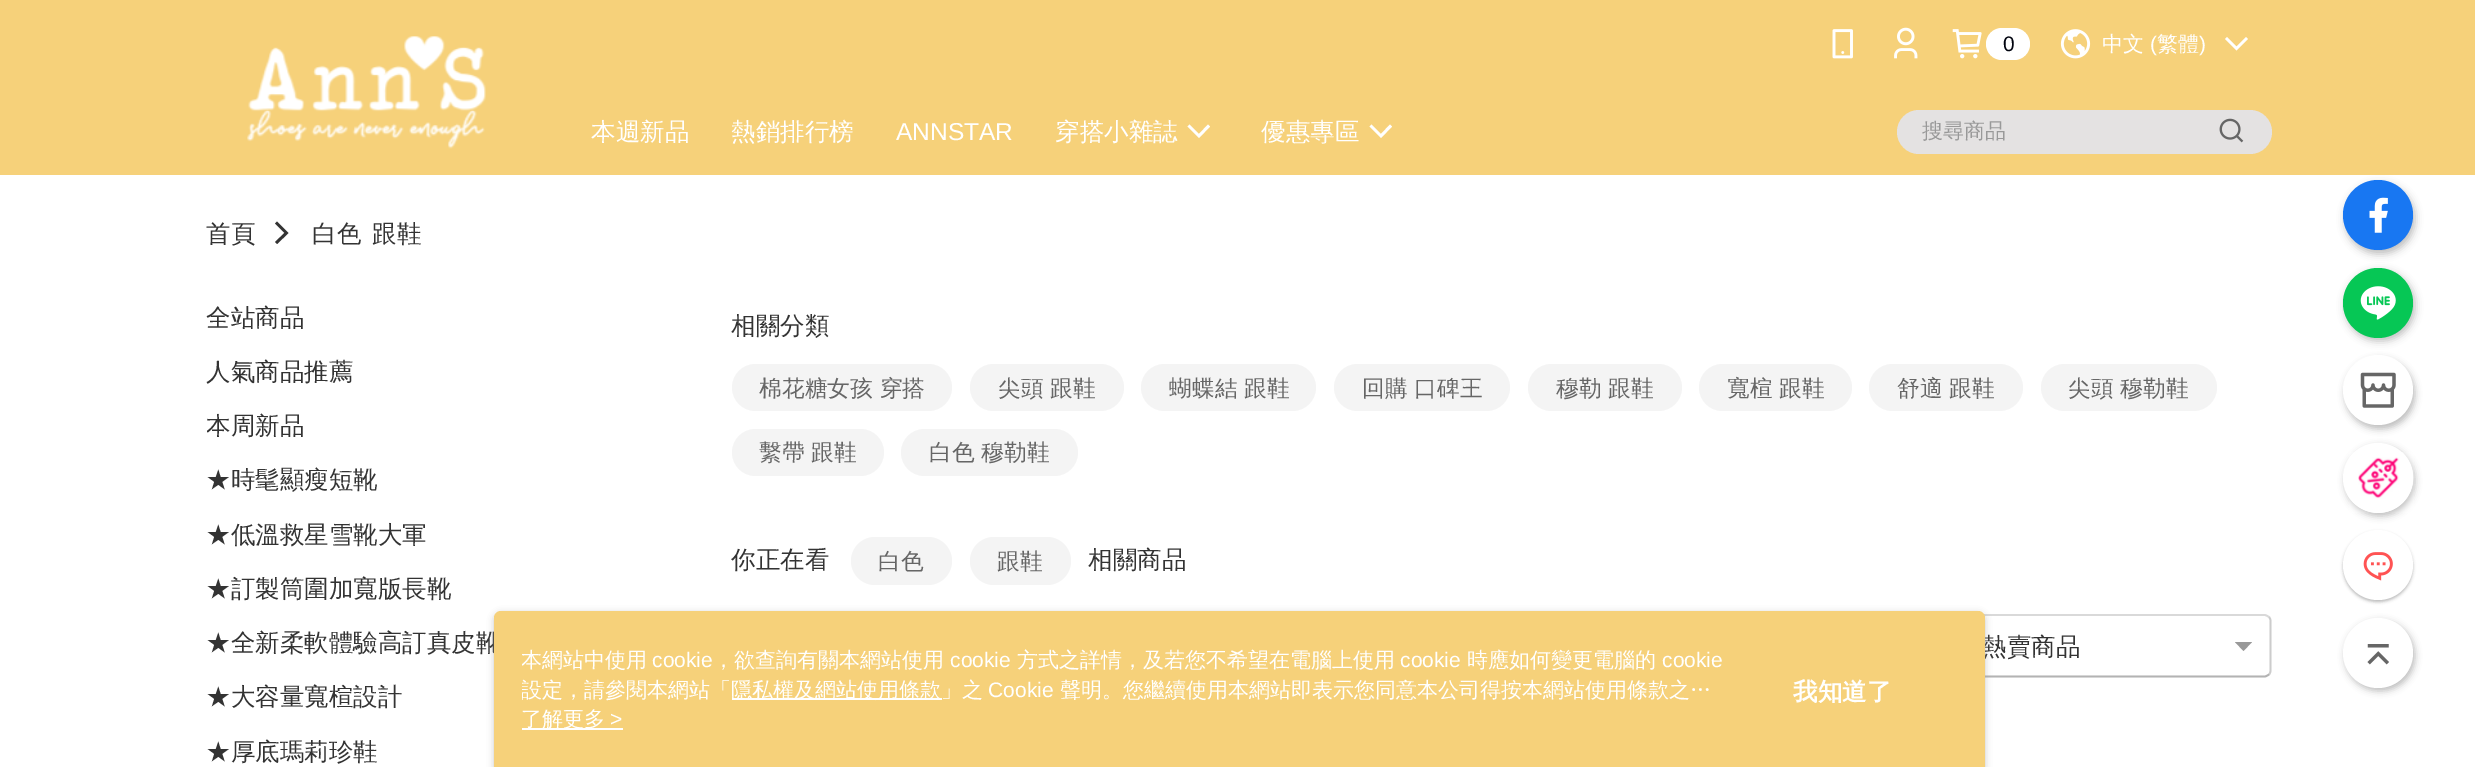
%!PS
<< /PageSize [2475 767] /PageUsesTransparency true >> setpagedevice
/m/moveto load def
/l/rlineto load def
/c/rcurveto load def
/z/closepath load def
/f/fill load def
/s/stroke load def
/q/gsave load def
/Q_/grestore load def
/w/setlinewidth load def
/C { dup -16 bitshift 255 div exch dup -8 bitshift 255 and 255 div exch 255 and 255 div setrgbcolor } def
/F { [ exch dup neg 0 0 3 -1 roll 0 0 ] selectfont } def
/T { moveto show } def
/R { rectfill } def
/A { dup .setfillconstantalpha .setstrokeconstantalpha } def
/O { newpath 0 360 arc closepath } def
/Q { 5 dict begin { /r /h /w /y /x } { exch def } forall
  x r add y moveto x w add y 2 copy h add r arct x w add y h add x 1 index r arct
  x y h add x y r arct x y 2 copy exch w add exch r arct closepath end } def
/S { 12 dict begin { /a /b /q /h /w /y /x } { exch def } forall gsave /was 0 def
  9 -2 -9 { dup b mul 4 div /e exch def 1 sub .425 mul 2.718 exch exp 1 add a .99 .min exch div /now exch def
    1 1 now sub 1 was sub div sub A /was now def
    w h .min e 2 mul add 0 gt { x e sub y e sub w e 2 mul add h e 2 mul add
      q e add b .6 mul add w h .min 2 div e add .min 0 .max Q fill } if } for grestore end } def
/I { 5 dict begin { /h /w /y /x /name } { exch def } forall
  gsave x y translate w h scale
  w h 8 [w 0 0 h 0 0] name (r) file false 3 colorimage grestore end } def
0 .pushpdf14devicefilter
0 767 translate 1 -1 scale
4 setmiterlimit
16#FFFFFF C
0 0 2475 767 R
16#000000 C
2345 184 70 70 35 4 .25 S
16#F6D17A C
0 0 2475 175 R
(1.rgb) 247 36 239 113 I
(2.rgb) 1832 29 21 30 I
(3.rgb) 1894 27 24 32 I
(4.rgb) 1952 29 30 30 I
16#FFFFFF C
1986 28 44 32 16 Q f
/LiberationSans-Regular 21 F
16#01040F C
(0) 2003 51 T
(5.rgb) 2060 29 31 30 I
/WenQuanYiZenHei-Medium 21 F
16#FFFFFF C
(中文) 2102 51 T
/LiberationSans-Regular 21 F
(\() 2150 51 T
/WenQuanYiZenHei-Medium 21 F
(繁體) 2157 51 T
/LiberationSans-Regular 21 F
(\)) 2199 51 T
2227 37 m -2 2 l 11.5 11.5 l 11.5 -11.5 l -2 -2 l -9.5 9.5 l z f
/WenQuanYiZenHei-Medium 24.5 F
(本週新品) 591 140 T
(熱銷排行榜) 731 140 T
/LiberationSans-Regular 24.5 F
(ANNSTAR) 896 140 T
/WenQuanYiZenHei-Medium 24.5 F
(穿搭小雜誌) 1055 140 T
1189.5 124.5 m -2 2 l 11.5 11.5 l 11 -11.5 l -2 -2 l -9 9.5 l z f
(優惠專區) 1261 140 T
1371.5 124.5 m -2 2 l 11.5 11.5 l 11 -11.5 l -2 -2 l -9 9.5 l z f
16#E4E2E2 C
1897 110 375 44 22 Q f
/WenQuanYiZenHei-Medium 21 F
16#999999 C
(搜尋商品) 1922 138 T
(6.rgb) 2219 118 25 25 I
16#1877F2 C
2378 215 35 O f
(7.rgb) 2369 197 19 36 I
16#000000 C
2345 271 70 70 35 4 .25 S
16#06C755 C
2378 303 35 O f
(8.rgb) 2360 286 36 34 I
16#000000 C
2345 359 70 70 35 3.5 .25 S
16#FFFFFF C
2378 390 35 O f
(9.rgb) 2360 372 36 36 I
16#000000 C
2345 446 70 70 35 3.5 .25 S
16#FFFFFF C
2378 478 35 O f
(10.rgb) 2349 452 65 61 I
16#000000 C
2343 532 70 70 35 1.5 .25 S
16#FFFFFF C
2378 565 35 O f
(11.rgb) 2363 552 30 29 I
16#000000 C
2345 621 70 70 35 3.5 .25 S
16#FFFFFF C
2378 653 35 O f
(12.rgb) 2367 644 22 21 I
/WenQuanYiZenHei-Medium 24.5 F
16#333333 C
(首頁) 206 242 T
275 242 m 2 2 l 11.5 -11 l -11.5 -11.5 l -2 2 l 9.5 9.5 l z f
(白色) 312 242 T
(跟鞋) 372 242 T
(全站商品) 206 326 T
(人氣商品推薦) 206 380 T
q
207 408 98 35 rectclip
(本周新品) 206 434 T
Q_
(★時髦顯瘦短靴) 206 488 T
(★低溫救星雪靴大軍) 206 543 T
(★訂製筒圍加寬版長靴) 206 597 T
(★全新柔軟體驗高訂真皮靴) 206 651 T
(★大容量寬楦設計) 206 705 T
(★厚底瑪莉珍鞋) 206 760 T
(相關分類) 731 334 T
16#F4F4F4 C
732 364 220 47 23.5 Q f
/WenQuanYiZenHei-Medium 22.75 F
16#666666 C
(棉花糖女孩 穿搭) 759 396 T
16#F4F4F4 C
970 364 154 47 23.5 Q f
16#666666 C
(尖頭 跟鞋) 998 396 T
16#F4F4F4 C
1141 364 175 47 23.5 Q f
16#666666 C
(蝴蝶結 跟鞋) 1169 396 T
16#F4F4F4 C
1334 364 176 47 23.5 Q f
16#666666 C
(回購 口碑王) 1362 396 T
16#F4F4F4 C
1528 364 154 47 23.5 Q f
16#666666 C
(穆勒 跟鞋) 1556 396 T
16#F4F4F4 C
1699 364 153 47 23.5 Q f
16#666666 C
(寬楦 跟鞋) 1727 396 T
16#F4F4F4 C
1869 364 154 47 23.5 Q f
16#666666 C
(舒適 跟鞋) 1897 396 T
16#F4F4F4 C
2041 364 176 47 23.5 Q f
16#666666 C
(尖頭 穆勒鞋) 2068 396 T
16#F4F4F4 C
732 429 152 47 23.5 Q f
16#666666 C
(繫帶 跟鞋) 759 460 T
16#F4F4F4 C
901 429 177 47 23.5 Q f
16#666666 C
(白色 穆勒鞋) 929 460 T
/WenQuanYiZenHei-Medium 24.5 F
16#333333 C
(你正在看) 731 568 T
16#F4F4F4 C
851 537 101 48 24 Q f
/WenQuanYiZenHei-Medium 22.75 F
16#666666 C
(白色) 878 569 T
16#F4F4F4 C
970 537 101 48 24 Q f
16#666666 C
(跟鞋) 997 569 T
/WenQuanYiZenHei-Medium 24.5 F
16#333333 C
(相關商品) 1088 568 T
16#D9D9D9 C
1.8 w
1966 617 m 1.5 -1 3 -2 4.5 -2 c 294 0 l 1.5 0 3 1 4.5 2 c s
16#CCCCCC C
2269 617 m 1 1 1.5 2.5 1.5 4 c 0 49 l 0 2 -.5 3.5 -1.5 4.5 c s
16#B3B3B3 C
2269 674.5 m -1.5 1 -3 2 -4.5 2 c -294 0 l -1.5 0 -3 -1 -4.5 -2 c s
16#333333 C
(熱賣商品) 1982 655 T
16#999999 C
2235 642 m 17 0 l -8.5 9 l z f
16#979797 C
494 613 1491 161 7 3.5 .5 S
16#F6D17A C
494 611 1491 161 7 Q f
q
522 646 1207 59 rectclip
/WenQuanYiZenHei-Medium 21 F
16#FFFFFF C
(本網站中使用) 521 667 T
Q_
/LiberationSans-Regular 21 F
16#FFFFFF C
(cookie) 652 667 T
/WenQuanYiZenHei-Medium 21 F
(，欲查詢有關本網站使用) 713 667 T
/LiberationSans-Regular 21 F
(cookie) 950 667 T
/WenQuanYiZenHei-Medium 21 F
(方式之詳情，及若您不希望在電腦上使用) 1017 667 T
/LiberationSans-Regular 21 F
(cookie) 1400 667 T
/WenQuanYiZenHei-Medium 21 F
(時應如何變更電腦的) 1467 667 T
/LiberationSans-Regular 21 F
(cookie) 1662 667 T
q
522 646 1207 59 rectclip
/WenQuanYiZenHei-Medium 21 F
(設定，請參閱本網站「) 521 697 T
Q_
732 698 210 2 R
/WenQuanYiZenHei-Medium 21 F
(隱私權及網站使用條款」之) 731 697 T
/LiberationSans-Regular 21 F
(Cookie) 988 697 T
/WenQuanYiZenHei-Medium 21 F
(聲明。您繼續使用本網站即表示您同意本公司得按本網站使用條款之…) 1060 697 T
522 728 101 2 R
(了解更多) 521 726 T
/LiberationSans-Regular 21 F
(>) 610 726 T
/WenQuanYiZenHei-Bold 24.5 F
(我知道了) 1793 700 T
.poppdf14devicefilter showpage
